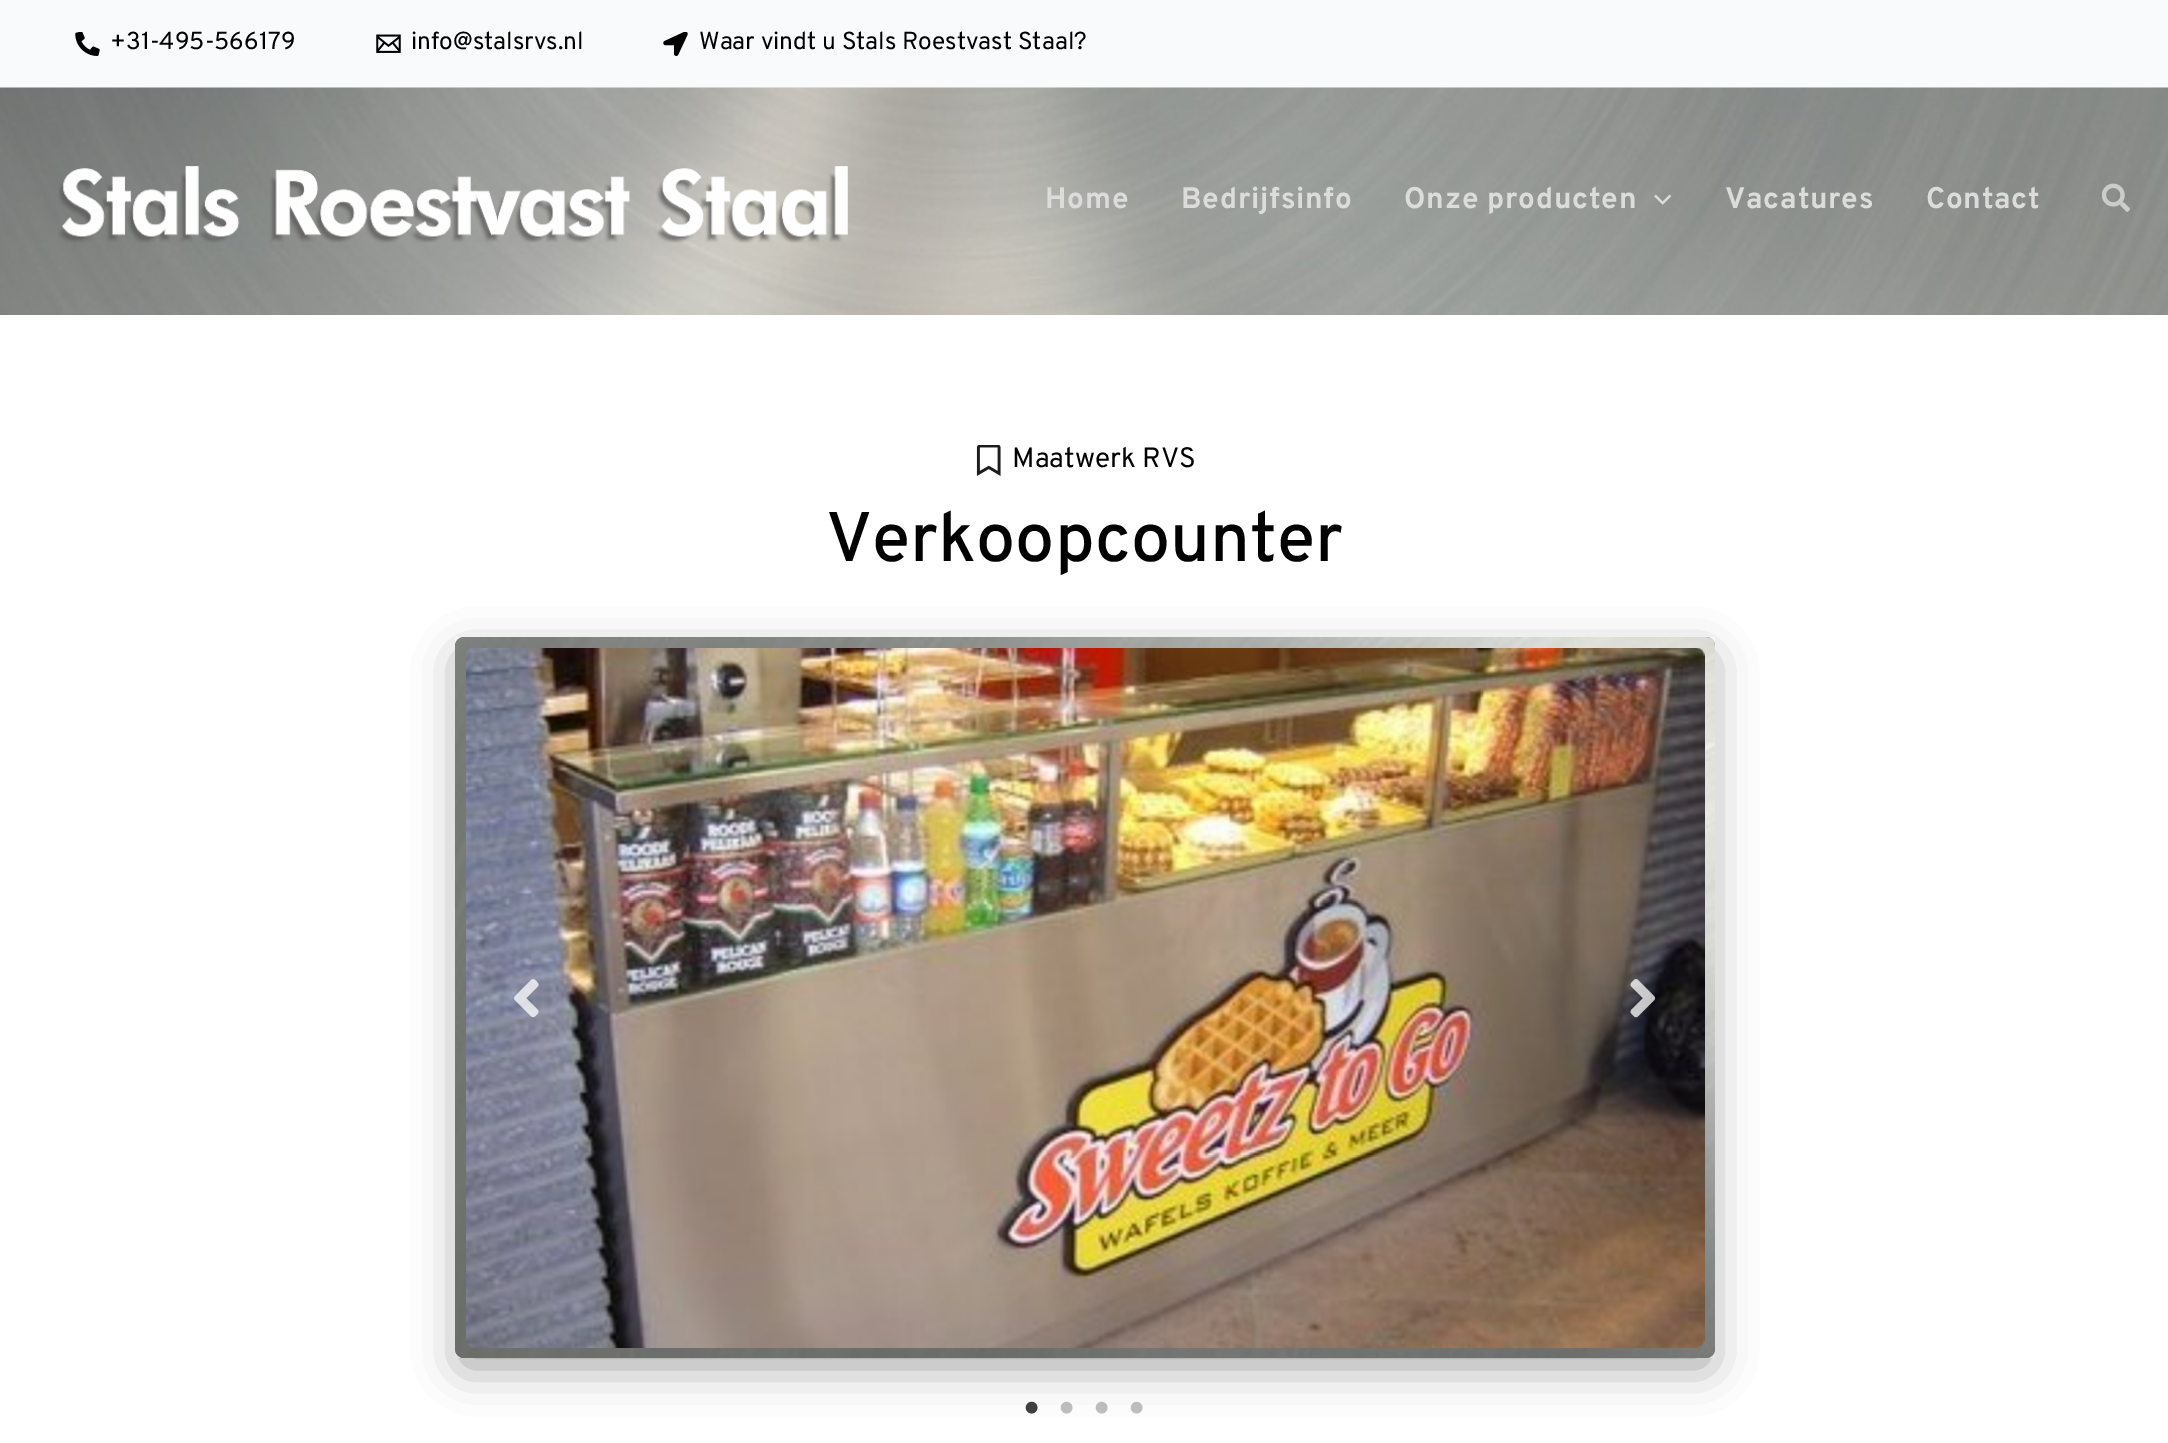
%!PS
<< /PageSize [2168 1443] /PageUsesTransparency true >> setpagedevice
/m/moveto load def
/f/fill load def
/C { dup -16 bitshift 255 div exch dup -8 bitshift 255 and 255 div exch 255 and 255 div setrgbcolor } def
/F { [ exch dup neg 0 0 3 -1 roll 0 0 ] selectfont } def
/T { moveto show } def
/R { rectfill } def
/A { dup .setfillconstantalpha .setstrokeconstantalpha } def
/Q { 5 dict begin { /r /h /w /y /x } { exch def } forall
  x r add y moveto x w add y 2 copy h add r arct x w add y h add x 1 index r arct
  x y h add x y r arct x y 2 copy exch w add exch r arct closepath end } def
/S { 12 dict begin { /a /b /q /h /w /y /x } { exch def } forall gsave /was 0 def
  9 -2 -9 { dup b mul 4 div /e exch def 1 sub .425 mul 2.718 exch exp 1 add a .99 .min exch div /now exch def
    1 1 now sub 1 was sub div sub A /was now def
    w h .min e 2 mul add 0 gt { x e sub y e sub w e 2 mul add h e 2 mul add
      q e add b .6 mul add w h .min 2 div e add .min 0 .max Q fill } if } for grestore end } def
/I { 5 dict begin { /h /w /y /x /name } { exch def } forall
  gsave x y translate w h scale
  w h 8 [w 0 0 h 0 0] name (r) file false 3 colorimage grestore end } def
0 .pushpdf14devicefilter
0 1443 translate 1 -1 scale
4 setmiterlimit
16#FFFFFF C
0 0 2168 1443 R
16#F9FAFB C
0 0 2168 88 R
(1.rgb) 75 32 25 24 I
/Overpass-Regular 24.5 F
16#000000 C
(+31-495-566179) 110 49 T
(2.rgb) 376 34 25 19 I
(info@stalsrvs.nl) 411 49 T
(3.rgb) 663 32 25 24 I
(Waar vindt u Stals Roestvast Staal?) 699 49 T
(4.rgb) 0 87 2168 228 I
(5.rgb) 58 166 790 77 I
/Overpass-Bold 29.75 F
16#DCDCDC C
1045 208 m .75 0 (Home) ashow
1181 208 m .75 0 (Bedrijfsinfo) ashow
1404 208 m .75 0 (Onze producten) ashow
(6.rgb) 1654 194 17 11 I
1725 208 m .75 0 (Vacatures) ashow
1926 208 m .75 0 (Contact) ashow
(7.rgb) 2102 183 28 29 I
(8.rgb) 976 445 25 31 I
/Overpass-Regular 28 F
16#000000 C
(Maatwerk RVS) 1012 467 T
/Overpass-Medium 70 F
(Verkoopcounter) 826 561 T
462 658 1246 707 2 23 .4 S
0.6 A
455 637 1260 721 9 Q f
1 A
(9.rgb) 455 637 1260 721 I
(10.rgb) 466 648 1239 700 I
(11.rgb) 514 979 25 39 I
(12.rgb) 1630 979 26 39 I
(13.rgb) 1025 1401 13 13 I
(14.rgb) 1060 1401 13 13 I
(14.rgb) 1095 1401 13 13 I
(14.rgb) 1130 1401 13 13 I
.poppdf14devicefilter showpage
